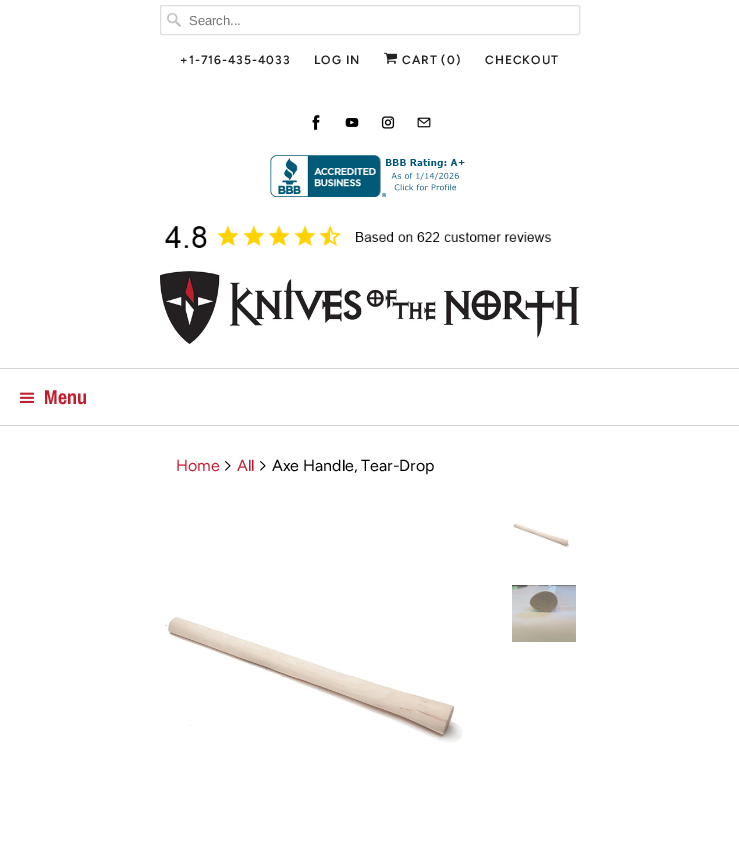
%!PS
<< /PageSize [739 863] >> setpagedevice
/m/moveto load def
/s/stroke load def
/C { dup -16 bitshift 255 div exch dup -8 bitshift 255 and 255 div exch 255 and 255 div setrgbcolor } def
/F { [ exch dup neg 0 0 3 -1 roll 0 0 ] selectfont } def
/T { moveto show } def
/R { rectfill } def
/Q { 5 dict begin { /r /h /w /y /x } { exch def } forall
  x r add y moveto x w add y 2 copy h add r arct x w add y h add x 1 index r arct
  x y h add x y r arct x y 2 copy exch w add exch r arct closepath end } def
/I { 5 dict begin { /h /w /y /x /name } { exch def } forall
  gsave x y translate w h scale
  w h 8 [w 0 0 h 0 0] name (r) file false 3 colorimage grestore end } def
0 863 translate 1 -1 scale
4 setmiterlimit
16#FFFFFF C
0 0 739 863 R
(1.rgb) 167 13 14 14 I
16#DFDFDF C
160.5 5.5 419 29 1.5 Q s
/LiberationSans-Regular 13 F
16#757575 C
(Search...) 189 25 T
/Figtree-SemiBold 12 F
16#222222 C
180 64 m 1 0 (+1-716-435-4033) ashow
314 64 m 1 0 (LOG IN) ashow
(2.rgb) 384 52 13 12 I
402 64 m 1 0 (CART \(0\)) ashow
485 64 m 1 0 (CHECKOUT) ashow
(3.rgb) 312 115 8 15 I
(4.rgb) 345 118 14 9 I
(5.rgb) 381 116 14 13 I
(6.rgb) 417 117 14 11 I
(7.rgb) 270 155 195 42 I
(8.rgb) 165 225 387 23 I
(9.rgb) 160 271 419 73 I
16#D3D3D3 C
0 368 739 1 R
0 425 739 1 R
(10.rgb) 20 392 14 11 I
/ArchivoNarrow-Bold 20 F
16#C11E2F C
(Menu) 44 404 T
/Figtree-Regular 16 F
(Home) 176 471 T
(11.rgb) 225 461 6 10 I
(All) 237 471 T
(11.rgb) 260 461 6 10 I
16#000000 C
(Axe Handle, Tear-Drop) 272 471 T
(12.rgb) 513 523 57 25 I
(13.rgb) 512 585 64 57 I
(14.rgb) 165 617 301 126 I
showpage
